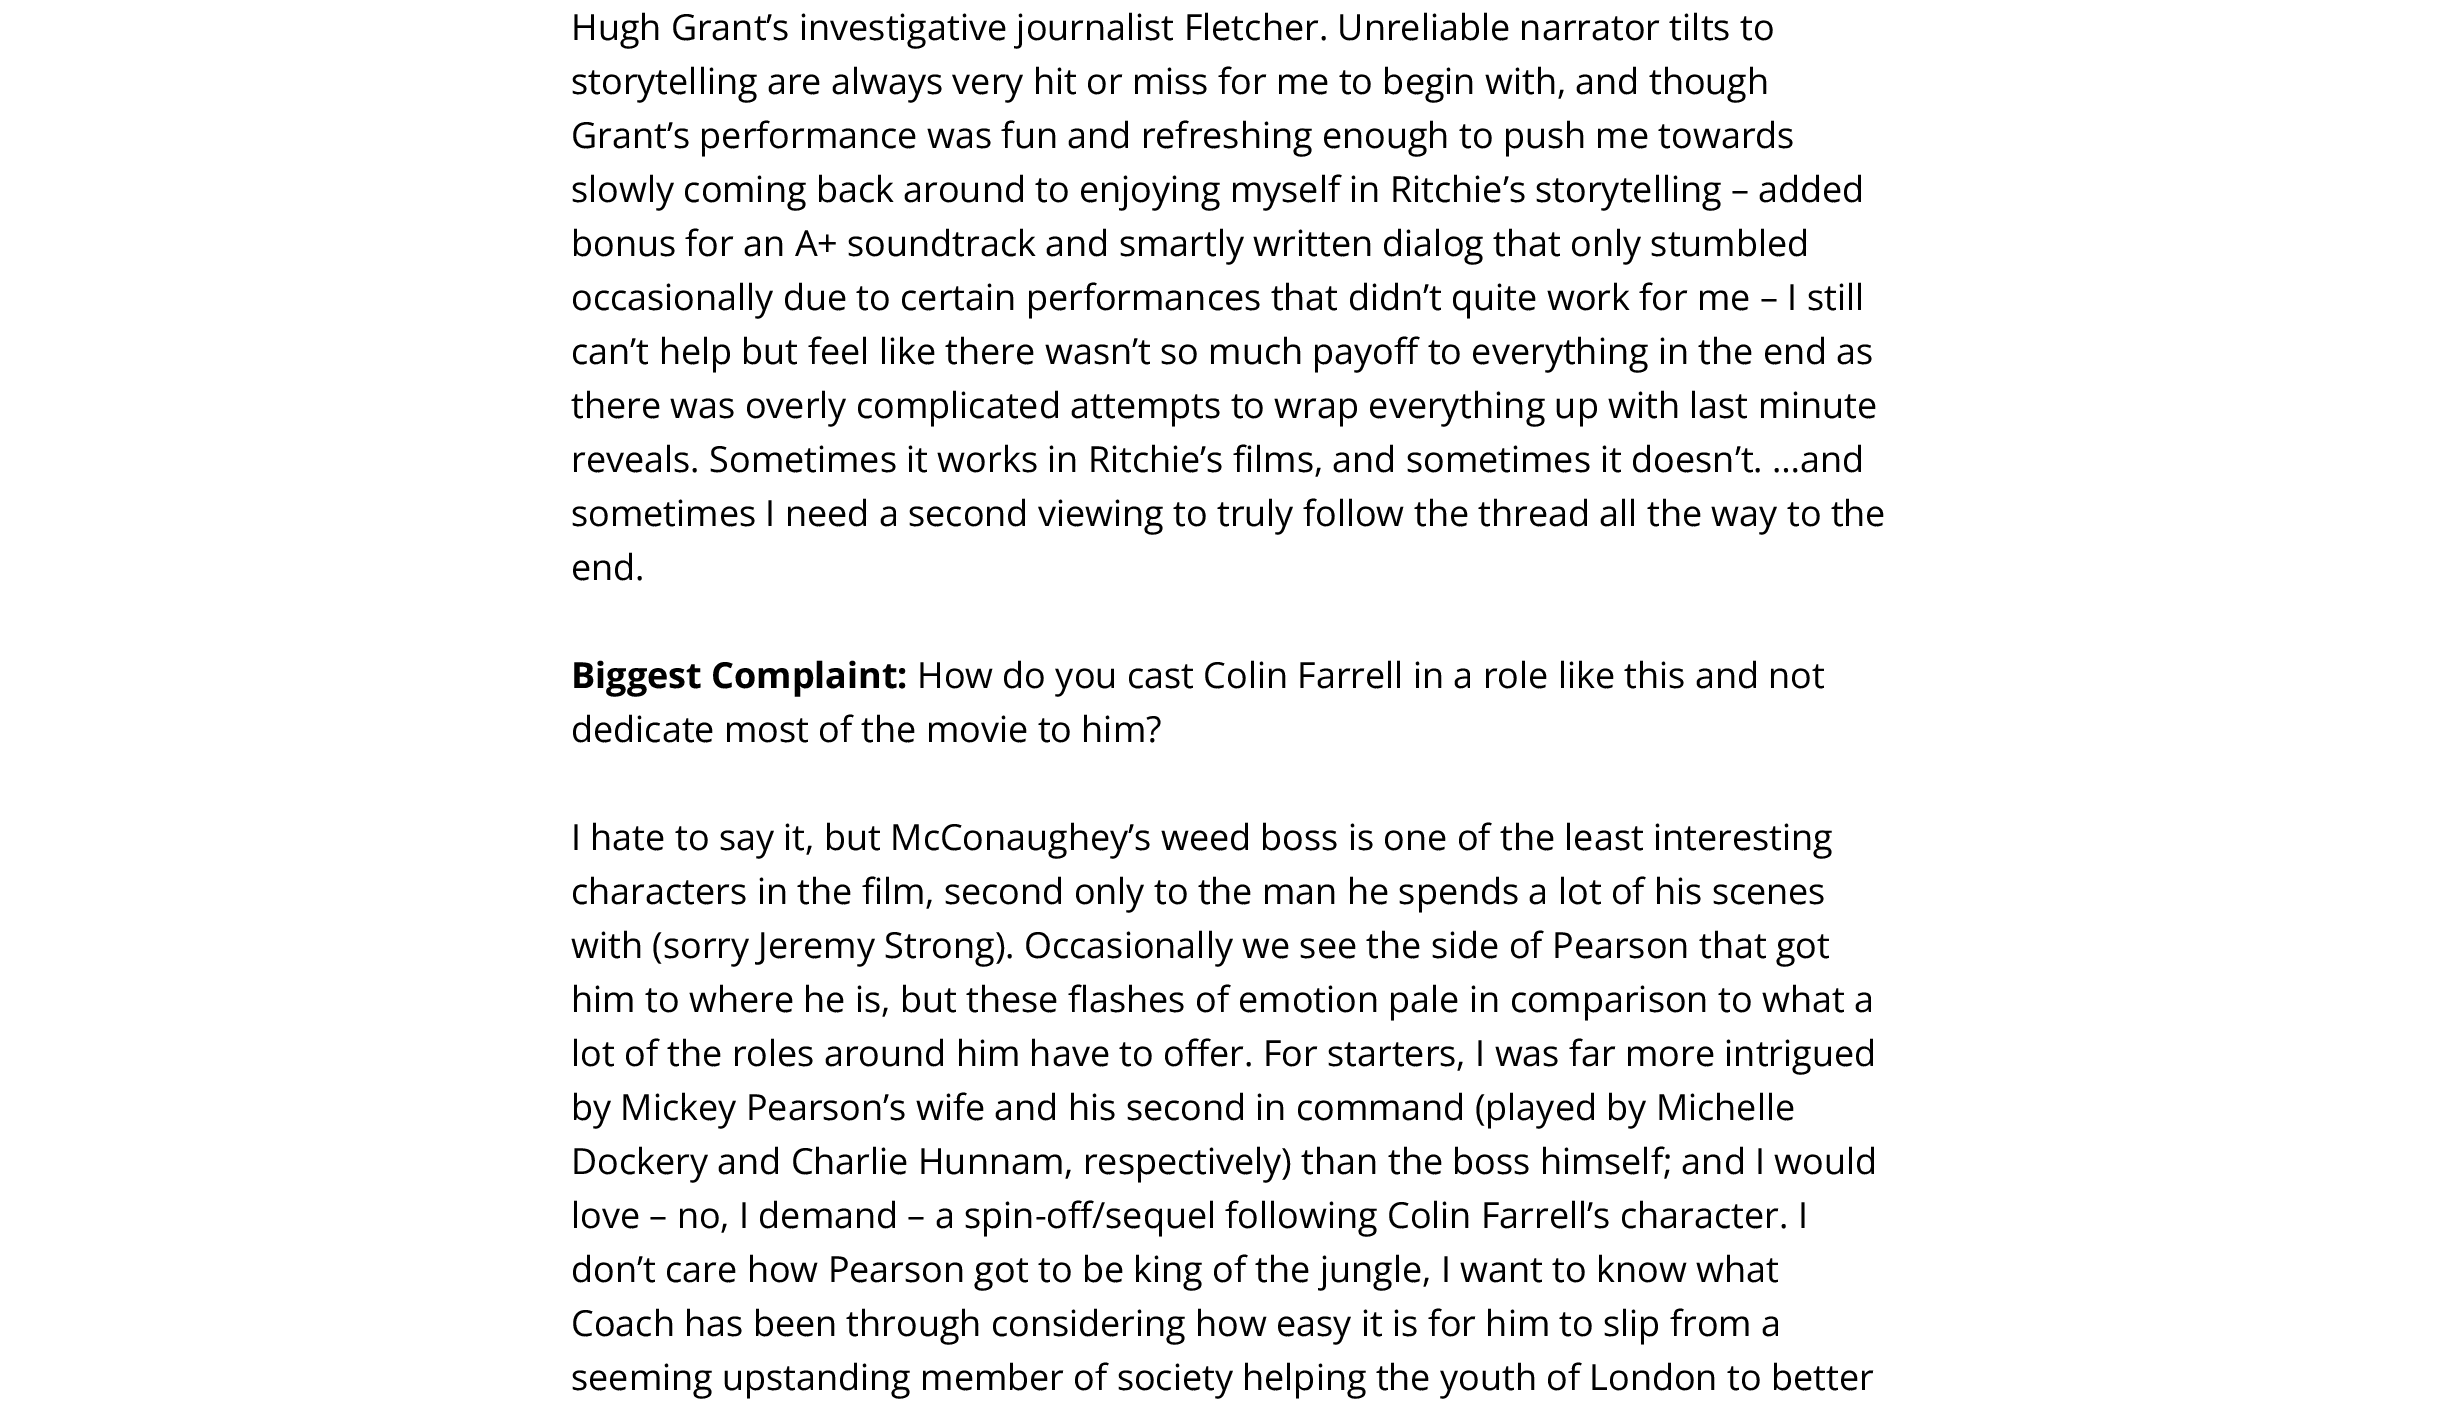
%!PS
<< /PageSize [2462 1403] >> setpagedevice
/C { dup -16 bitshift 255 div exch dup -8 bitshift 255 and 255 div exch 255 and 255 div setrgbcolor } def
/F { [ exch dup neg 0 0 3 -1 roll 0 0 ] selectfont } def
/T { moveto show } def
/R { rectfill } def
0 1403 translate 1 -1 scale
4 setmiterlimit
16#FFFFFF C
0 0 2462 1403 R
/OpenSans-Regular 36 F
16#000000 C
(Hugh Grant’s investigative journalist Fletcher. Unreliable narrator tilts to) 571 40 T
(storytelling are always very hit or miss for me to begin with, and though) 571 94 T
(Grant’s performance was fun and refreshing enough to push me towards) 571 148 T
(slowly coming back around to enjoying myself in Ritchie’s storytelling – added) 571 202 T
(bonus for an A+ soundtrack and smartly written dialog that only stumbled) 571 256 T
(occasionally due to certain performances that didn’t quite work for me – I still) 571 310 T
(can’t help but feel like there wasn’t so much payoff to everything in the end as) 571 364 T
(there was overly complicated attempts to wrap everything up with last minute) 571 418 T
(reveals. Sometimes it works in Ritchie’s films, and sometimes it doesn’t. …and) 571 472 T
(sometimes I need a second viewing to truly follow the thread all the way to the) 571 526 T
(end.) 571 580 T
/OpenSans-Bold 36 F
(Biggest Complaint:) 571 688 T
/OpenSans-Regular 36 F
(How do you cast Colin Farrell in a role like this and not) 917 688 T
(dedicate most of the movie to him?) 571 742 T
(I hate to say it, but McConaughey’s weed boss is one of the least interesting) 571 850 T
(characters in the film, second only to the man he spends a lot of his scenes) 571 904 T
(with \(sorry Jeremy Strong\). Occasionally we see the side of Pearson that got) 571 958 T
(him to where he is, but these flashes of emotion pale in comparison to what a) 571 1012 T
(lot of the roles around him have to offer. For starters, I was far more intrigued) 571 1066 T
(by Mickey Pearson’s wife and his second in command \(played by Michelle) 571 1120 T
(Dockery and Charlie Hunnam, respectively\) than the boss himself; and I would) 571 1174 T
(love – no, I demand – a spin-off/sequel following Colin Farrell’s character. I) 571 1228 T
(don’t care how Pearson got to be king of the jungle, I want to know what) 571 1282 T
(Coach has been through considering how easy it is for him to slip from a) 571 1336 T
(seeming upstanding member of society helping the youth of London to better) 571 1390 T
showpage
